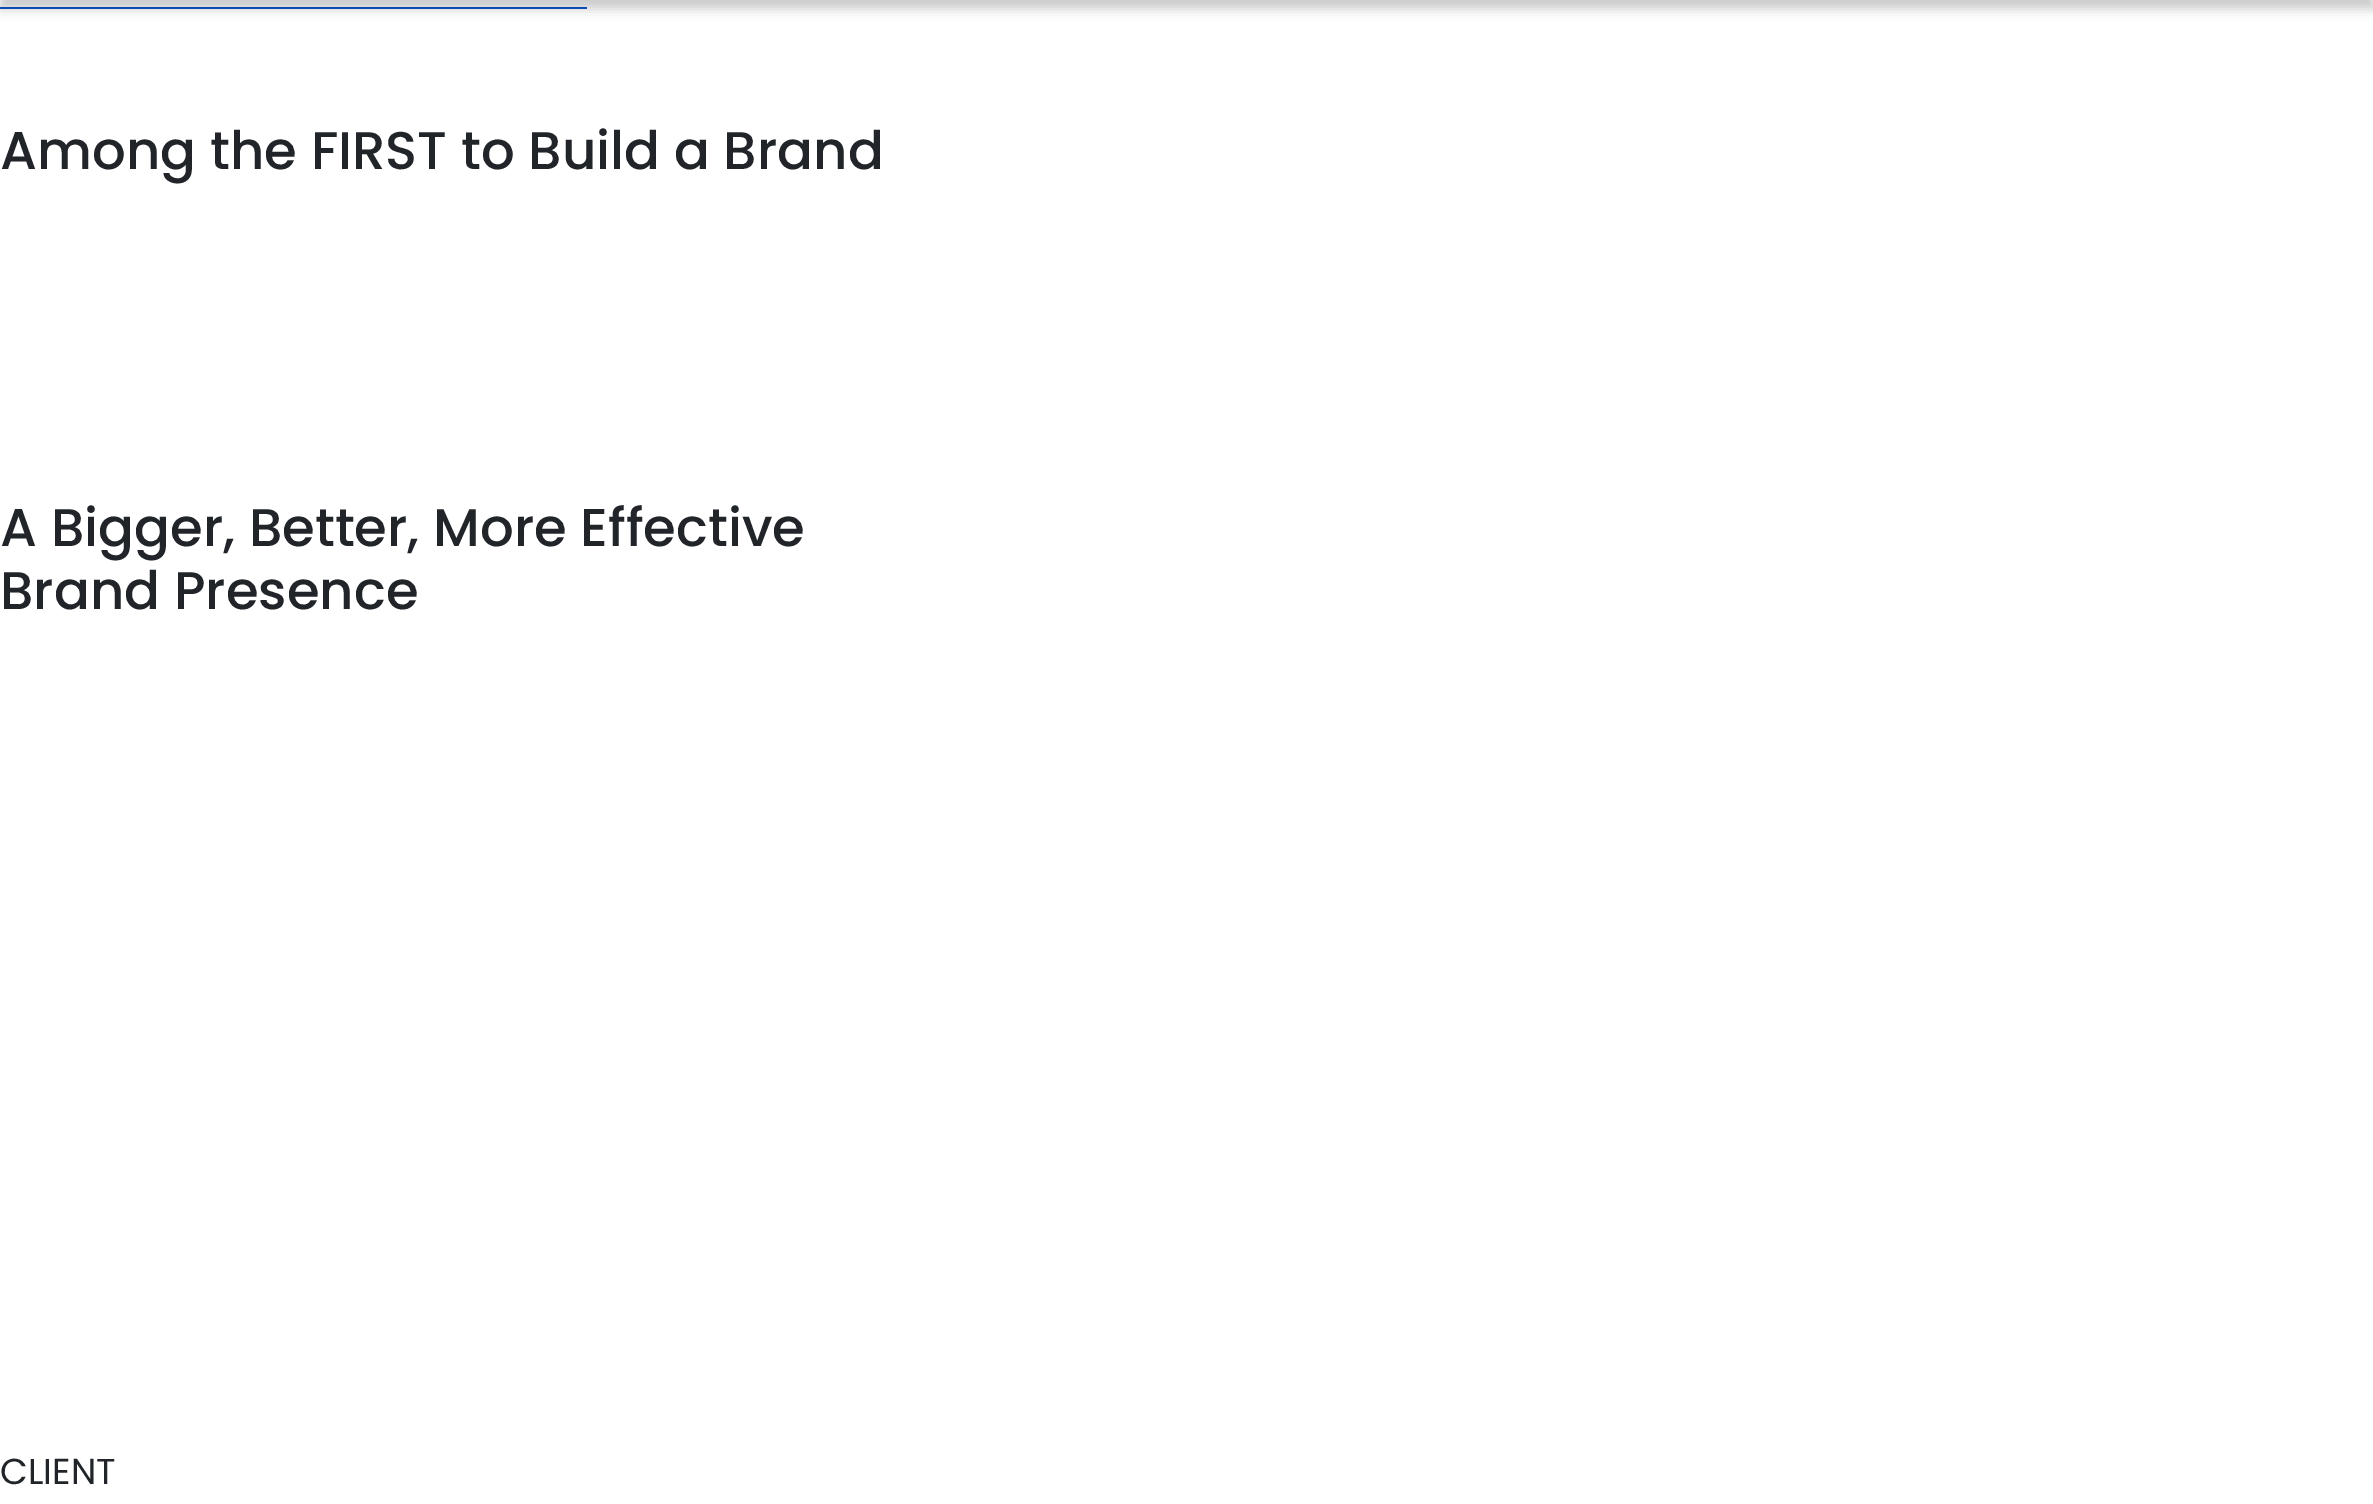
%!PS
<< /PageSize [2373 1504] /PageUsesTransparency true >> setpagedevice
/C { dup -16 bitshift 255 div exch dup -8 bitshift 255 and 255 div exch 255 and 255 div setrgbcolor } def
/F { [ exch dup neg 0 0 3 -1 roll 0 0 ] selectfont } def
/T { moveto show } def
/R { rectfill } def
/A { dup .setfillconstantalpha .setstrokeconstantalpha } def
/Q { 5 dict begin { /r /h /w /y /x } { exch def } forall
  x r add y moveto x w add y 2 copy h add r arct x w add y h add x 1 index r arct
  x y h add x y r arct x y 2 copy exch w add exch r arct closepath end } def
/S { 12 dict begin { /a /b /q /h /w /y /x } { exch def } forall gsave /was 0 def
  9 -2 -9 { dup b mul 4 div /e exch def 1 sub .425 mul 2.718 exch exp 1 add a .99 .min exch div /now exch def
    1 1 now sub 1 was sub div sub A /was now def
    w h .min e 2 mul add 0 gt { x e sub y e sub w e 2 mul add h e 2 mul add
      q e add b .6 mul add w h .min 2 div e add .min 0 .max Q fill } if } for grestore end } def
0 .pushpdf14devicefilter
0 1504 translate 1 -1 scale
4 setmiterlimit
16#FFFFFF C
0 0 2373 1504 R
16#0A58CA C
0 7 587 2 R
16#000000 C
0 -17 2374 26 0 5.5 .2 S
/Poppins-Medium 53 F
16#212529 C
(Among the FIRST to Build a Brand) 0 169 T
(A Bigger, Better, More Effective) 0 546 T
(Brand Presence) 0 609 T
/Poppins-Regular 36 F
(CLIENT) 0 1484 T
.poppdf14devicefilter showpage
